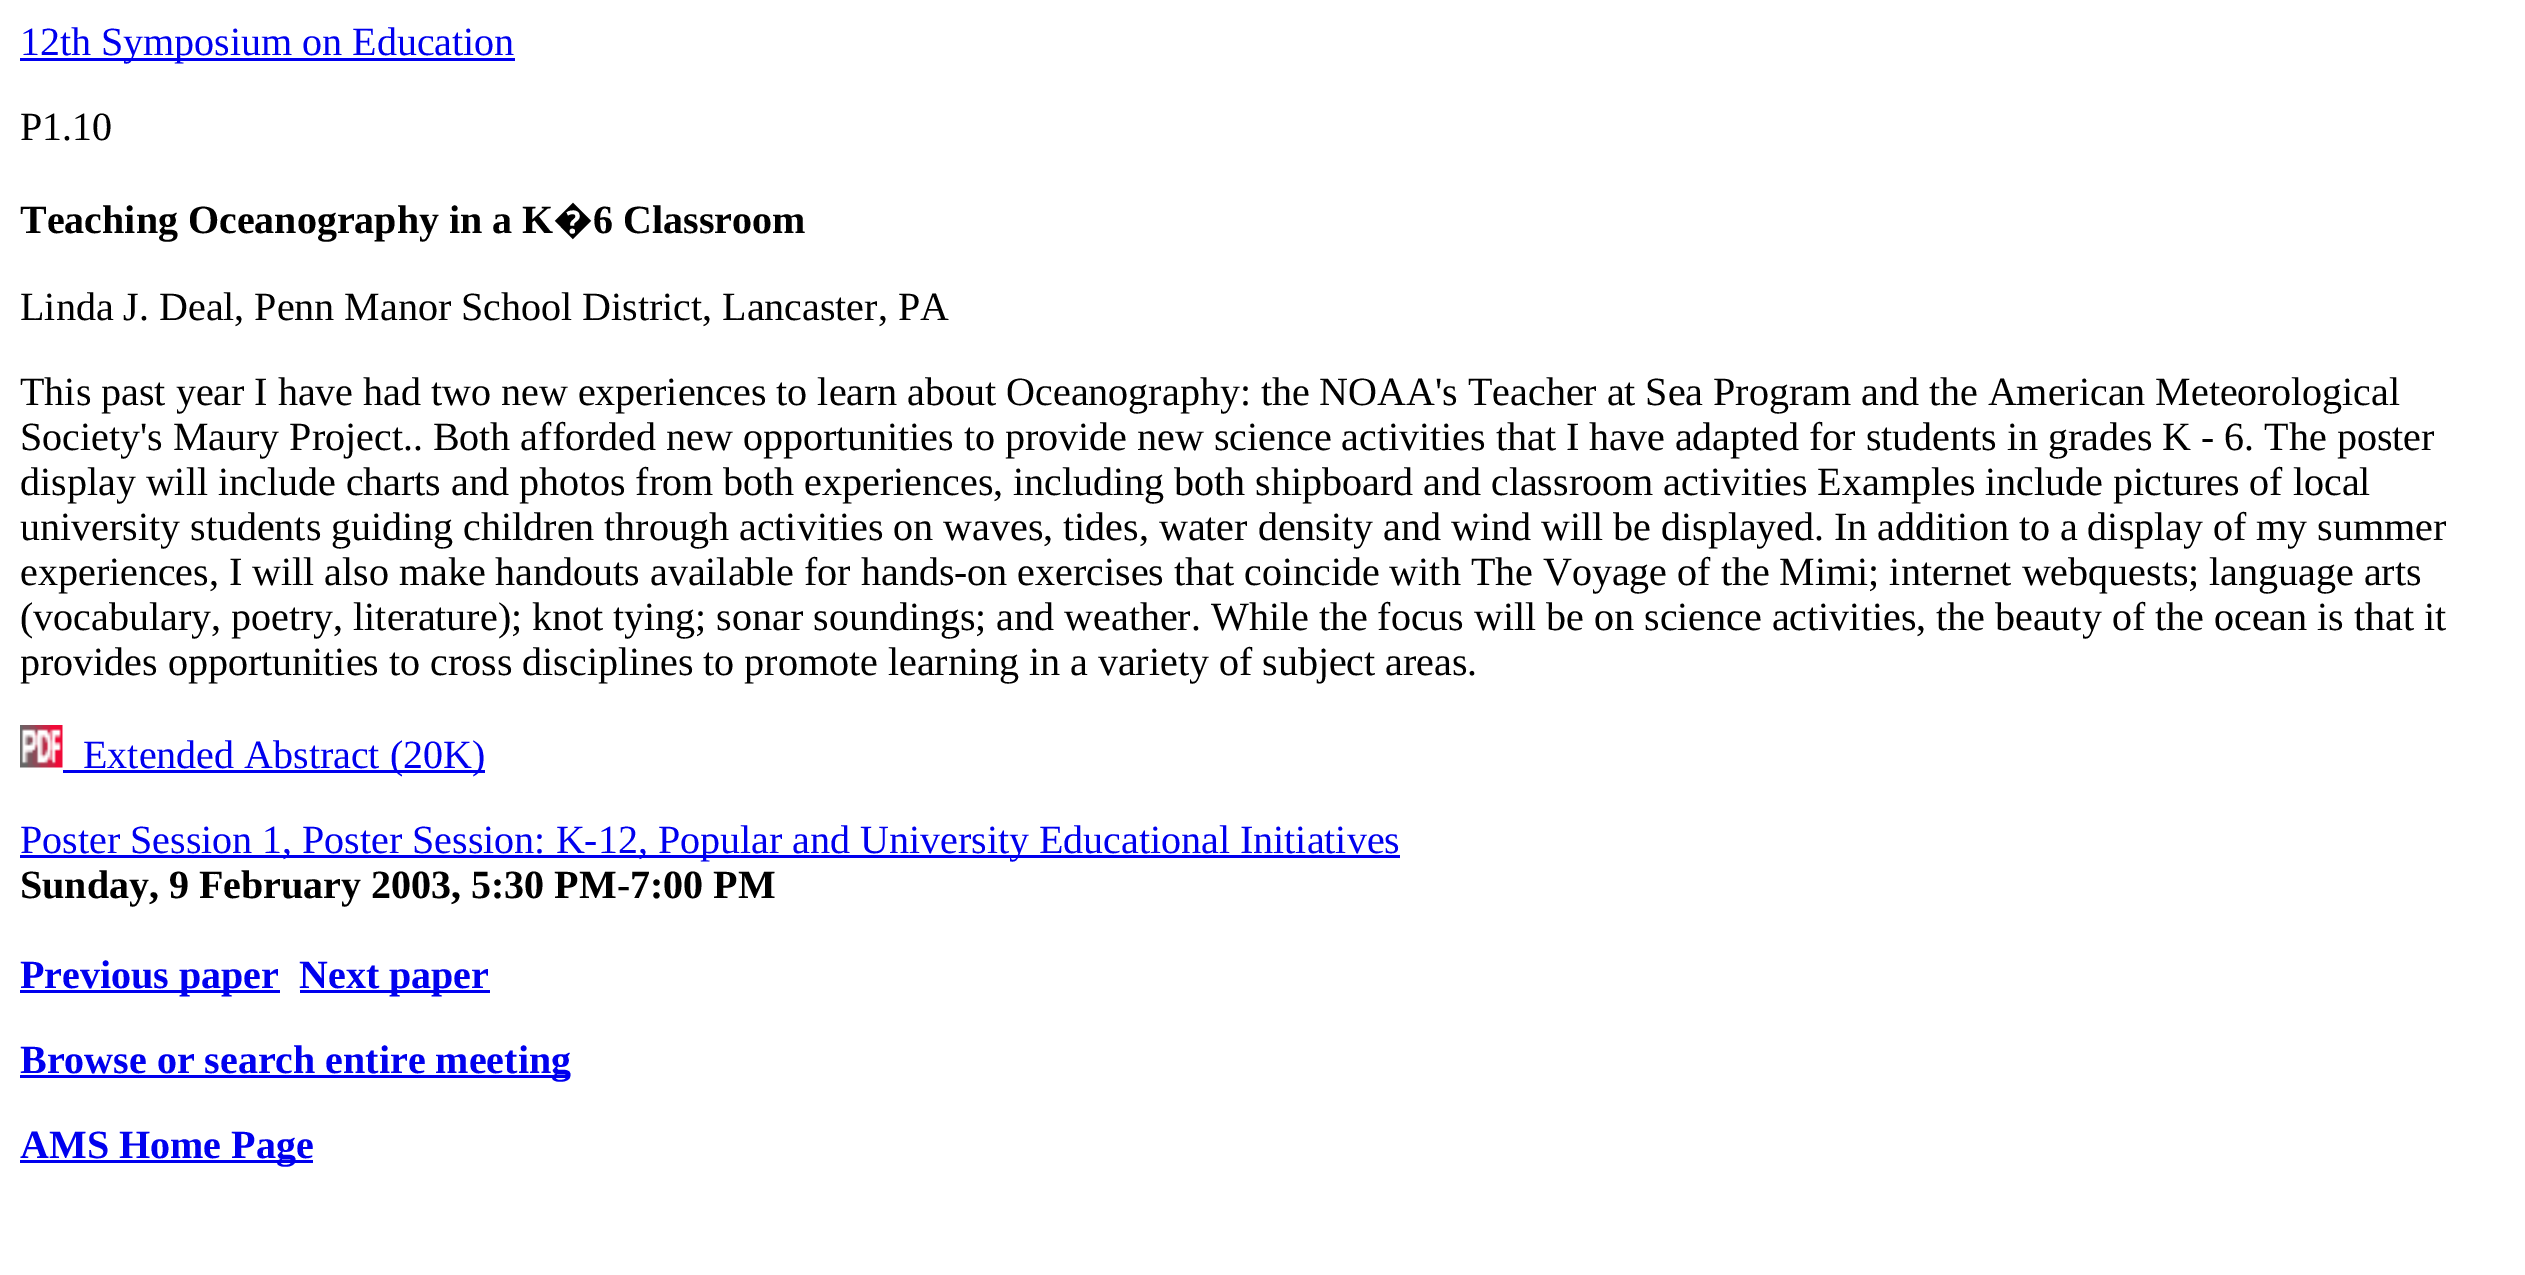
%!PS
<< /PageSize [2525 1275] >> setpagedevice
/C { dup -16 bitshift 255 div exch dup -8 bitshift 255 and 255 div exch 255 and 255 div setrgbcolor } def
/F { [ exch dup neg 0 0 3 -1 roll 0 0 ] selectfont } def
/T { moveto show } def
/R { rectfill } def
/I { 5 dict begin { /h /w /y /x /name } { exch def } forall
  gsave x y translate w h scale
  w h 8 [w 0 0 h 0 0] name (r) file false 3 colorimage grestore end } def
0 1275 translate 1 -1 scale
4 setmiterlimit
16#FFFFFF C
0 0 2525 1275 R
16#0000EE C
20 58 495 3 R
/LiberationSerif-Regular 40 F
(12th Symposium on Education) 20 55 T
16#000000 C
(P1.10) 20 140 T
/LiberationSerif-Bold 40 F
(Teaching Oceanography in a K) 20 233 T
/NotoSans-Bold 40 F
(�) 553 233 T
/LiberationSerif-Bold 40 F
(6 Classroom) 593 233 T
/LiberationSerif-Regular 40 F
(Linda J. Deal, Penn Manor School District, Lancaster, PA) 20 320 T
(This past year I have had two new experiences to learn about Oceanography: the NOAA's Teacher at Sea Program and the American Meteorological) 20 405 T
(Society's Maury Project.. Both afforded new opportunities to provide new science activities that I have adapted for students in grades K - 6. The poster) 20 450 T
(display will include charts and photos from both experiences, including both shipboard and classroom activities Examples include pictures of local) 20 495 T
(university students guiding children through activities on waves, tides, water density and wind will be displayed. In addition to a display of my summer) 20 540 T
(experiences, I will also make handouts available for hands-on exercises that coincide with The Voyage of the Mimi; internet webquests; language arts) 20 585 T
(\(vocabulary, poetry, literature\); knot tying; sonar soundings; and weather. While the focus will be on science activities, the beauty of the ocean is that it) 20 630 T
(provides opportunities to cross disciplines to promote learning in a variety of subject areas.) 20 675 T
(1.rgb) 20 725 43 43 I
16#0000EE C
63 770 422 3 R
(Extended Abstract \(20K\)) 83 768 T
20 855 1380 3 R
(Poster Session 1, Poster Session: K-12, Popular and University Educational Initiatives) 20 853 T
/LiberationSerif-Bold 40 F
16#000000 C
(Sunday, 9 February 2003, 5:30 PM-7:00 PM) 20 898 T
16#0000EE C
20 990 260 3 R
(Previous paper) 20 988 T
300 990 190 3 R
(Next paper) 299 988 T
20 1075 550 3 R
(Browse or search entire meeting) 20 1073 T
20 1160 293 3 R
(AMS Home Page) 20 1158 T
showpage
